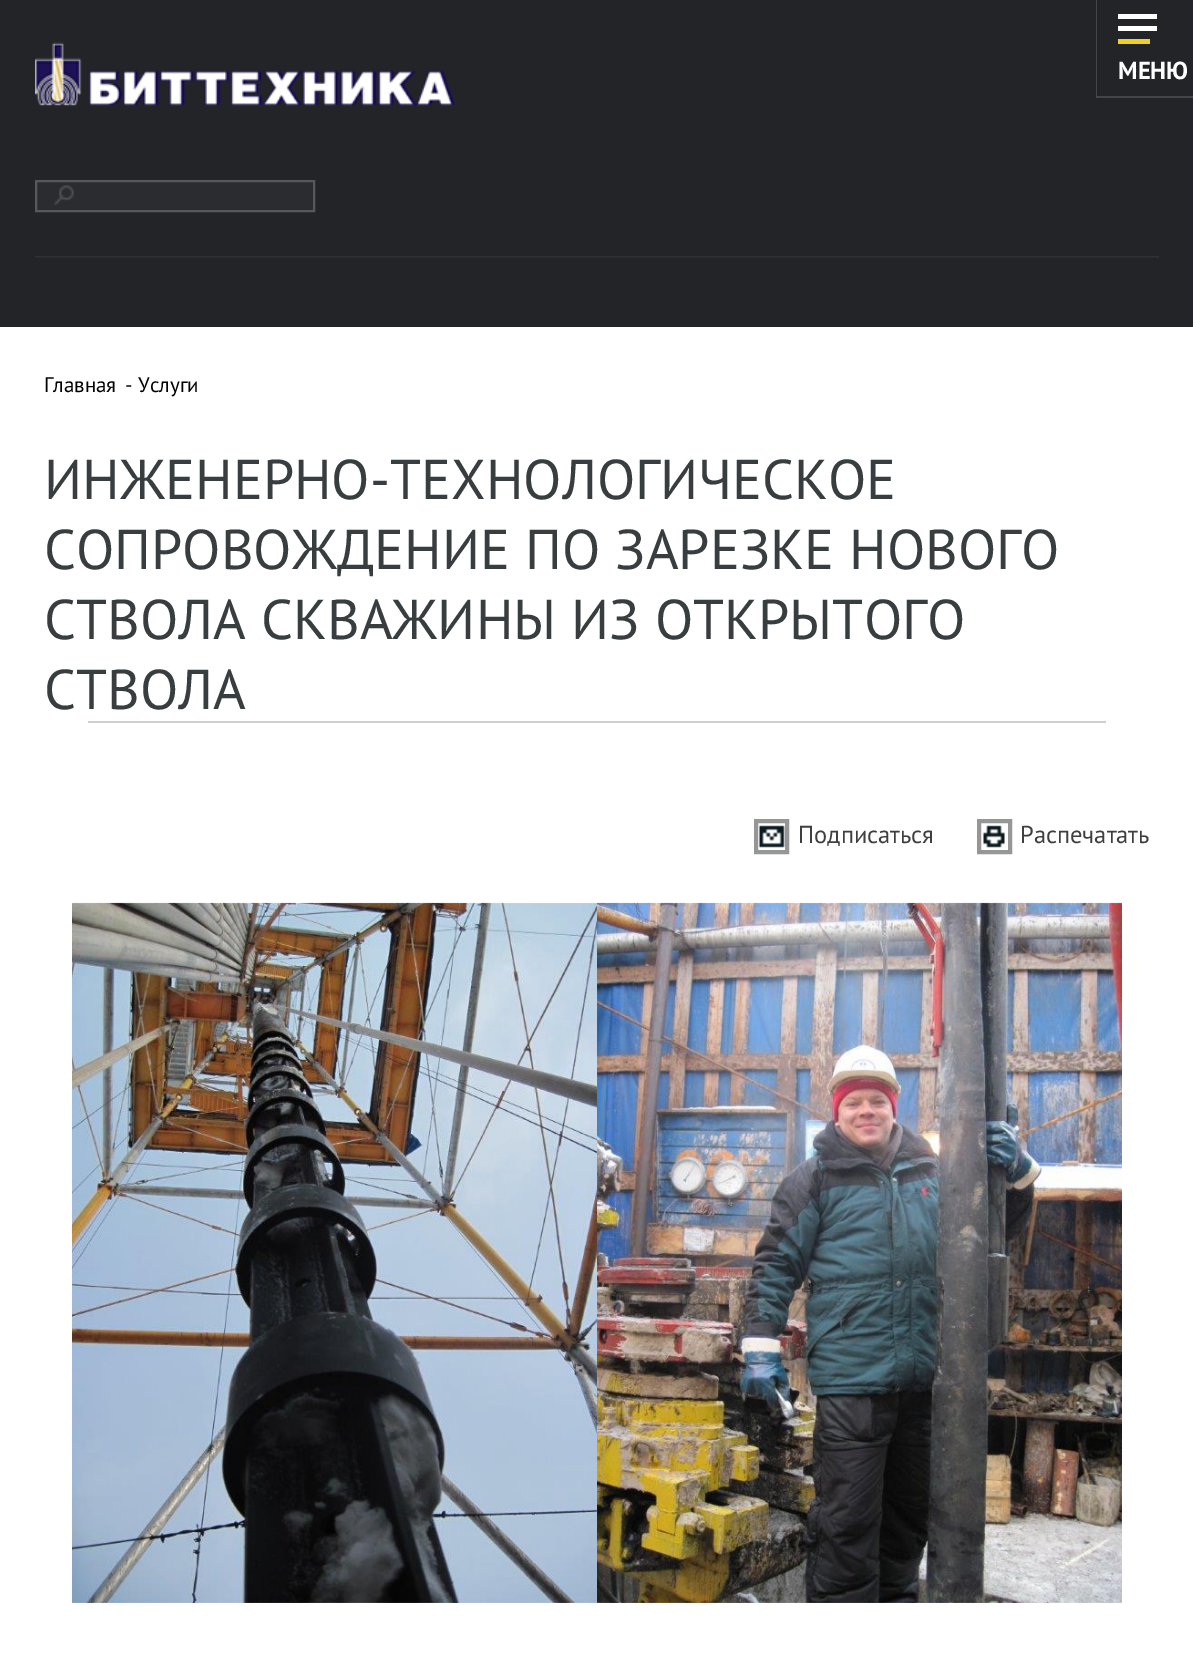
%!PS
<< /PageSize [1193 1665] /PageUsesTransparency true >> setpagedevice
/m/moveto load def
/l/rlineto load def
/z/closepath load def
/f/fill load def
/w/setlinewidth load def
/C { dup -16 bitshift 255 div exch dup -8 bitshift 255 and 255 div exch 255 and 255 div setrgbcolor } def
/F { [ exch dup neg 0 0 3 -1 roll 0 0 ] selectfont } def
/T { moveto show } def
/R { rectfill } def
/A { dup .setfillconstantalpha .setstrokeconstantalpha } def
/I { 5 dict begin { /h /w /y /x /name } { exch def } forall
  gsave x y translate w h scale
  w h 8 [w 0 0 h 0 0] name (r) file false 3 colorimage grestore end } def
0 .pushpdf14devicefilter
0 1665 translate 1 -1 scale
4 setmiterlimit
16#FFFFFF C
0 0 1193 1665 R
16#232428 C
0 0 1193 327 R
16#444548 C
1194 98 m -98 0 l 1 -2 l 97 0 l z f
0.15 A
16#FFFFFF C
1096 98 m 0 -98 l 1 0 l 0 96 l z f
1 A
1118 14 39 5 R
1118 26 39 5 R
16#EED221 C
1118 39 32 5 R
/PTSans-Bold 24.5 F
16#FFFFFF C
(МЕНЮ) 1118 79 T
(1.rgb) 35 42 420 64 I
16#2B2C30 C
37 182 276 28 R
(2.rgb) 54 185 20 20 I
16#545A5C C
2 w
36 181 278 30 rectstroke
16#303135 C
35 256 1124 2 R
16#2A2A2E C
35 257 1123 1 R
/PTSans-Regular 21 F
16#000000 C
(Главная) 44 392 T
(- Услуги) 125 392 T
/PTSans-Regular 56 F
16#383D3F C
(ИНЖЕНЕРНО-ТЕХНОЛОГИЧЕСКОЕ) 44 499 T
(СОПРОВОЖДЕНИЕ ПО ЗАРЕЗКЕ НОВОГО) 44 569 T
(СТВОЛА СКВАЖИНЫ ИЗ ОТКРЫТОГО) 44 639 T
(СТВОЛА) 44 709 T
16#CFCFCF C
88 721 1018 2 R
(3.rgb) 759 825 26 23 I
16#969696 C
4 w
756 821 31 31 rectstroke
/PTSans-Regular 24.5 F
16#3F3F3F C
(Подписаться) 798 843 T
(4.rgb) 983 825 22 23 I
16#969696 C
979 821 31 31 rectstroke
16#3F3F3F C
(Распечатать) 1020 843 T
(5.rgb) 72 902 525 701 I
(6.rgb) 597 902 525 701 I
.poppdf14devicefilter showpage
